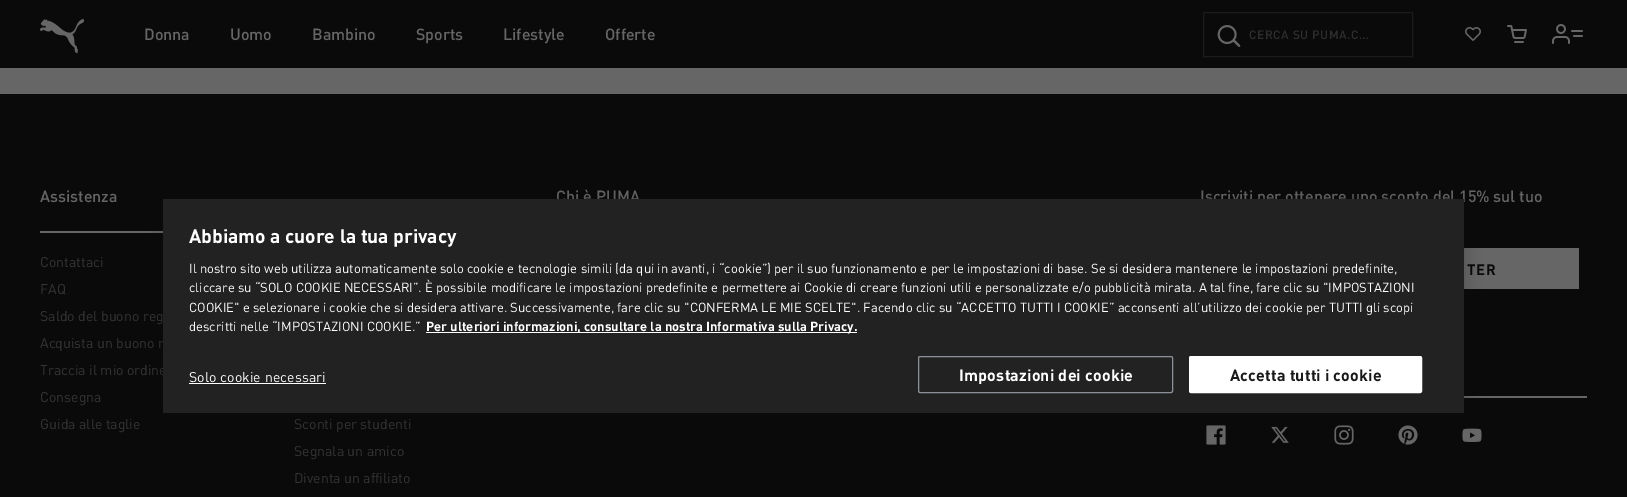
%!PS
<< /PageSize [1627 497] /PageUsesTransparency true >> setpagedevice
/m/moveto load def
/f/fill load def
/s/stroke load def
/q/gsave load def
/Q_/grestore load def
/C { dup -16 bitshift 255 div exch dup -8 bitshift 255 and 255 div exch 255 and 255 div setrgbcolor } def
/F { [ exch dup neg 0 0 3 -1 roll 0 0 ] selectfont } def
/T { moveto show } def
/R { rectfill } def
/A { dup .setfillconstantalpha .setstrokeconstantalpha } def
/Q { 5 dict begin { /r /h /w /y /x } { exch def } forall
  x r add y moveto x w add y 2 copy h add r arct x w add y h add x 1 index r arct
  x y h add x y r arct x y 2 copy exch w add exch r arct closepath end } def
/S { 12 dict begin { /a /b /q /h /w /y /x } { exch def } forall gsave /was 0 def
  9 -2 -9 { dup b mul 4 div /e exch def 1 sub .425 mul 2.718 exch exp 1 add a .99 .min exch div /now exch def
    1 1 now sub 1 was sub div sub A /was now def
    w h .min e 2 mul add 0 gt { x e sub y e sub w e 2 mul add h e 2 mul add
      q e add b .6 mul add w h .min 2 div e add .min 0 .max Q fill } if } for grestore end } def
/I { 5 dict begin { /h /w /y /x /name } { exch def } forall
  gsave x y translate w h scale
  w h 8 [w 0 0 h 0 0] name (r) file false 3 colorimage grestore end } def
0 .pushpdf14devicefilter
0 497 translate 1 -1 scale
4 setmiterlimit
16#666666 C
0 0 1627 497 R
16#0A0A0A C
0 0 1627 68 R
(1.rgb) 40 19 44 35 I
/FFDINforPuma-Medium 16 F
16#666666 C
(Donna) 144 40 T
(Uomo) 230 40 T
(Bambino) 312 40 T
(Sports) 416 40 T
(Lifestyle) 503 40 T
(Offerte) 605 40 T
16#1C1C1C C
1203.5 12.5 209 44 rectstroke
(2.rgb) 1217 25 24 22 I
/FFDINforPuma-Medium 12 F
16#2E2E2E C
1249 39 m .5 0 (CERCA SU PUMA.C…) ashow
(3.rgb) 1465 27 16 14 I
(4.rgb) 1507 25 20 18 I
(5.rgb) 1552 24 31 20 I
16#0A0A0A C
0 94 1627 403 R
16#666666 C
40 231 123 2 R
/FFDINforPuma-Medium 16 F
(Assistenza) 40 202 T
/FFDINforPuma-Regular 14 F
16#343434 C
(Contattaci) 40 267 T
(FAQ) 40 294 T
(Saldo del buono reg) 40 321 T
(Acquista un buono r) 40 348 T
(Traccia il mio ordine) 40 375 T
(Consegna) 40 402 T
(Guida alle taglie) 40 429 T
(Sconti per studenti) 294 429 T
(Segnala un amico) 294 456 T
(Diventa un affiliato) 294 483 T
/FFDINforPuma-Medium 16 F
16#666666 C
(Chi è PUMA) 556 202 T
(Iscriviti per ottenere uno sconto del 15% sul tuo) 1200 202 T
1464 248 115 41 R
/FFDINforPuma-Bold 15 F
16#0A0A0A C
1467 275 m .5 0 (TER) ashow
16#666666 C
1464 396 123 2 R
(6.rgb) 1206 425 20 20 I
(7.rgb) 1271 426 18 17 I
(8.rgb) 1334 425 20 20 I
(9.rgb) 1398 425 20 20 I
(10.rgb) 1462 428 20 14 I
16#000000 C
163 199 1301 214 0 9 .2 S
16#222222 C
163 199 1301 214 R
/FFDINforPuma-Bold 19.25 F
16#FFFFFF C
(Abbiamo a cuore la tua privacy) 189 243 T
/FFDINforPuma-Regular 13 F
(Il nostro sito web utilizza automaticamente solo cookie e tecnologie simili \(da qui in avanti, i “cookie”\) per il suo funzionamento e per le impostazioni di base. Se si desidera mantenere le impostazioni predefinite,) 189 273 T
(cliccare su “SOLO COOKIE NECESSARI”. È possibile modificare le impostazioni predefinite e permettere ai Cookie di creare funzioni utili e personalizzate e/o pubblicità mirata. A tal fine, fare clic su "IMPOSTAZIONI) 189 292 T
(COOKIE" e selezionare i cookie che si desidera attivare. Successivamente, fare clic su "CONFERMA LE MIE SCELTE". Facendo clic su “ACCETTO TUTTI I COOKIE” acconsenti all’utilizzo dei cookie per TUTTI gli scopi) 189 312 T
(descritti nelle “IMPOSTAZIONI COOKIE.”) 189 331 T
426 332 431 1 R
/FFDINforPuma-Bold 13 F
(Per ulteriori informazioni, consultare la nostra Informativa sulla Privacy.) 426 331 T
/FFDINforPuma-Regular 14 F
189 382 m .1 0 (Solo cookie necessari) ashow
189 383 137 1 R
16#8C9198 C
918.5 356.5 254 36 1.5 Q s
/FFDINforPuma-Bold 16 F
16#FFFFFF C
959 381 m .2 0 (Impostazioni dei cookie) ashow
1189.5 356.5 232 36 1.5 Q q f Q_
s
16#191919 C
1230 381 m .2 0 (Accetta tutti i cookie) ashow
.poppdf14devicefilter showpage
